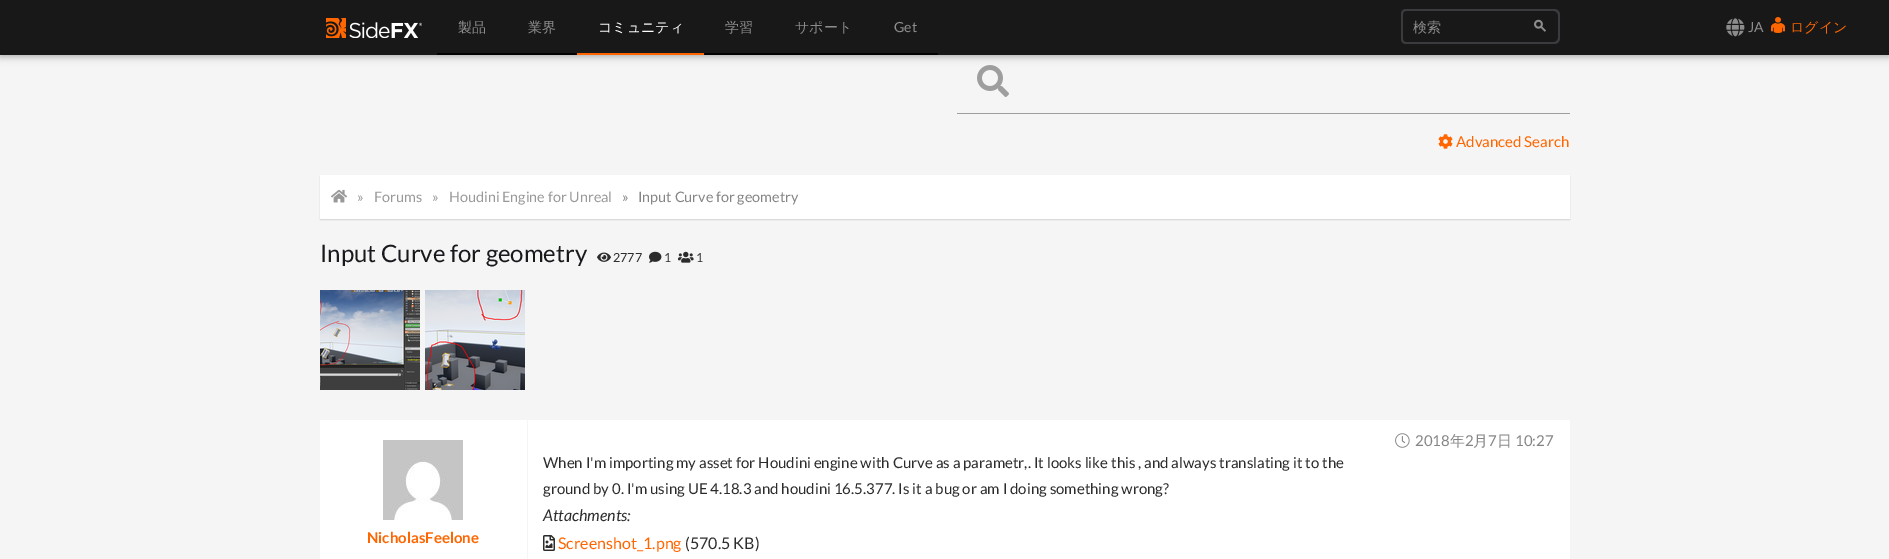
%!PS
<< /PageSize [1889 559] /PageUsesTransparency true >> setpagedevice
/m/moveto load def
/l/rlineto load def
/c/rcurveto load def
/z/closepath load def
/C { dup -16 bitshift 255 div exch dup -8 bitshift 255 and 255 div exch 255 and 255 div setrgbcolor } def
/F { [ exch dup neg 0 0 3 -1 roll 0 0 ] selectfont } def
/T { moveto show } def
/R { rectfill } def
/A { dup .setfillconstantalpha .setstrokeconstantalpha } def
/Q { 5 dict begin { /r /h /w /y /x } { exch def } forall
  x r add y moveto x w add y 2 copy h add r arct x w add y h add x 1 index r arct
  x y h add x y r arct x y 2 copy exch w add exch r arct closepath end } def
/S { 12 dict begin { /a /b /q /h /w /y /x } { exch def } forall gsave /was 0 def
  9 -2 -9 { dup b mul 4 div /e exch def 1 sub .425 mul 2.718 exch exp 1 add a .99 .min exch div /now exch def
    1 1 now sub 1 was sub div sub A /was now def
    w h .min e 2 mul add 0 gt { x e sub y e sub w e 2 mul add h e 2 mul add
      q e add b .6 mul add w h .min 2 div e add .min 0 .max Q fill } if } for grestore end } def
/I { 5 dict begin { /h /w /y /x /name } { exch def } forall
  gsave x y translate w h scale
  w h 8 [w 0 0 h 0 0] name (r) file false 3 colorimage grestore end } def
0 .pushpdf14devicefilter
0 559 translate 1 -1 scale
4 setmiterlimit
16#F5F5F5 C
0 0 1889 559 R
(5.rgb) 977 65 32 32 I
16#000000 C
0 2 1889 55 0 5 .12 S
0 2 1889 55 0 2.5 .16 S
16#181818 C
0 0 1889 55 R
(1.rgb) 326 18 96 20 I
16#020202 C
437 53 140 2 R
/WenQuanYiZenHei-Medium 14 F
16#8C8C8C C
(製品) 458 32 T
(業界) 528 32 T
16#FF6600 C
577 53 127 2 R
16#FFFFFF C
(コミュニティ) 598 32 T
16#020202 C
704 53 234 2 R
16#8C8C8C C
(学習) 725 32 T
(サポート) 795 32 T
/Lato-Regular 14 F
(Get) 894 32 T
16#3B3A3E C
1406 9 m 120 0 l 0 35 l -120 0 l -3 0 -5 -2 -5 -5 c 0 -25 l 0 -3 2 -5 5 -5 c z 1406 11 m 120 0 l 0 31 l -120 0 l -2 0 -3 -1 -3 -3 c 0 -25 l 0 -2 1 -3 3 -3 c z eofill
/WenQuanYiZenHei-Medium 14 F
16#8C8C8C C
(検索) 1413 32 T
16#3B3A3E C
1523 9 m 31 0 l 3.5 0 6 2.5 6 6 c 0 23 l 0 3.5 -2.5 6 -6 6 c -31 0 l z 1523 11 m 31 0 l 2 0 4 2 4 4 c 0 23 l 0 2 -2 4 -4 4 c -31 0 l z eofill
(2.rgb) 1534 19 12 13 I
(3.rgb) 1726 18 19 19 I
/Lato-Regular 14 F
16#8C8C8C C
(JA) 1748 32 T
(4.rgb) 1771 17 14 16 I
/WenQuanYiZenHei-Medium 14 F
16#FF6600 C
(ログイン) 1790 32 T
16#9E9E9E C
957 113 613 1 R
(6.rgb) 1438 134 15 15 I
/Lato-Regular 15 F
16#FF6600 C
(Advanced Search) 1456 147 T
16#000000 C
320 176 1250 44 0 .5 .12 S
16#FFFFFF C
320 175 1250 44 R
(7.rgb) 331 189 16 14 I
/Lato-Regular 14.4 F
16#999999 C
(») 357 202 T
(Forums) 374 202 T
(») 432 202 T
(Houdini Engine for Unreal) 449 202 T
16#858585 C
(») 622 202 T
(Input Curve for geometry) 638 202 T
/Lato-Regular 24 F
16#1A181D C
(Input Curve for geometry) 320 262 T
(8.rgb) 597 252 14 10 I
/Lato-Regular 12.5 F
16#2C2C2C C
(2777) 613 262 T
(9.rgb) 649 251 13 12 I
(1) 664 262 T
(10.rgb) 678 251 16 12 I
(1) 696 262 T
(11.rgb) 320 290 100 100 I
(12.rgb) 425 290 100 100 I
16#FFFFFF C
320 420 1250 139 R
16#F5F5F5 C
527 420 1 139 R
(13.rgb) 383 440 80 80 I
/Lato-Bold 15 F
16#FF6600 C
(NicholasFeelone) 367 543 T
(14.rgb) 1395 433 15 15 I
/Lato-Regular 15 F
16#858585 C
(2018) 1415 446 T
/WenQuanYiZenHei-Medium 15 F
(年) 1450 446 T
/Lato-Regular 15 F
(2) 1465 446 T
/WenQuanYiZenHei-Medium 15 F
(月) 1473 446 T
/Lato-Regular 15 F
(7) 1488 446 T
/WenQuanYiZenHei-Medium 15 F
(日) 1497 446 T
/Lato-Regular 15 F
(10:27) 1515 446 T
16#2C2C2C C
(When I'm importing my asset for Houdini engine with Curve as a parametr,. It looks like this , and always translating it to the) 543 468 T
(ground by 0. I'm using UE 4.18.3 and houdini 16.5.377. Is it a bug or am I doing something wrong?) 543 494 T
/Lato-Italic 16 F
(Attachments:) 543 521 T
(15.rgb) 543 535 12 16 I
/Lato-Regular 16 F
16#FF6600 C
(Screenshot_1.png) 558 549 T
16#2C2C2C C
(\(570.5 KB\)) 685 549 T
.poppdf14devicefilter showpage
